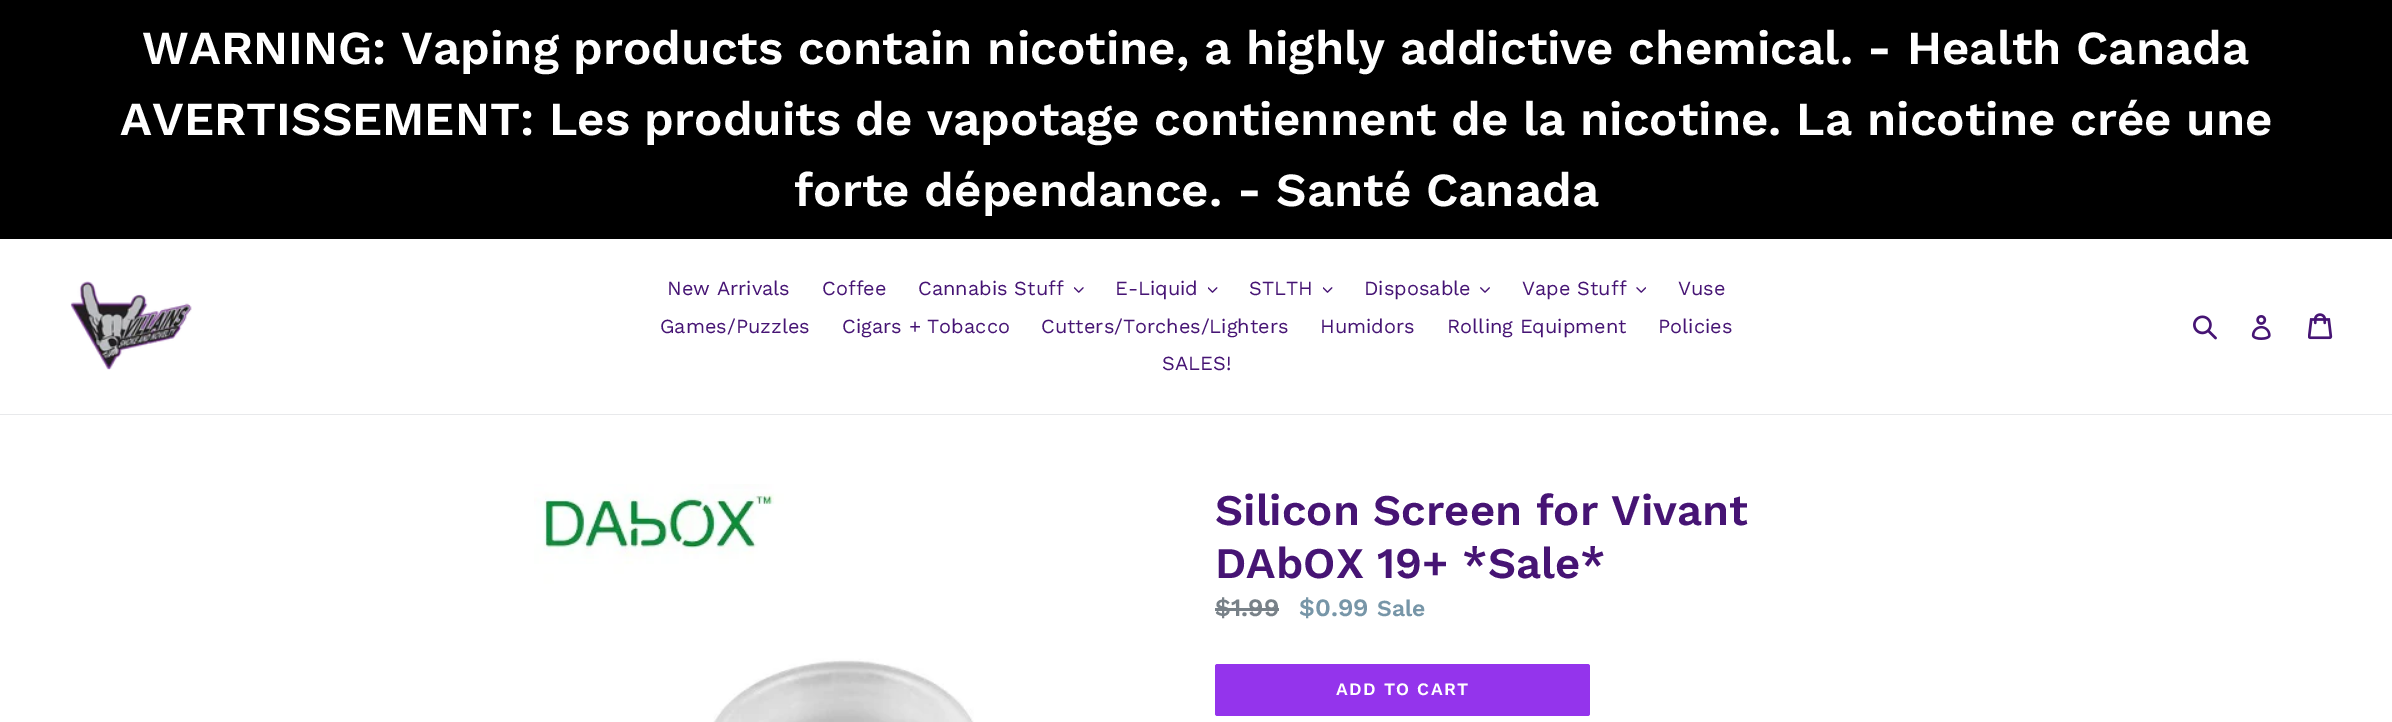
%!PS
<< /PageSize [2392 722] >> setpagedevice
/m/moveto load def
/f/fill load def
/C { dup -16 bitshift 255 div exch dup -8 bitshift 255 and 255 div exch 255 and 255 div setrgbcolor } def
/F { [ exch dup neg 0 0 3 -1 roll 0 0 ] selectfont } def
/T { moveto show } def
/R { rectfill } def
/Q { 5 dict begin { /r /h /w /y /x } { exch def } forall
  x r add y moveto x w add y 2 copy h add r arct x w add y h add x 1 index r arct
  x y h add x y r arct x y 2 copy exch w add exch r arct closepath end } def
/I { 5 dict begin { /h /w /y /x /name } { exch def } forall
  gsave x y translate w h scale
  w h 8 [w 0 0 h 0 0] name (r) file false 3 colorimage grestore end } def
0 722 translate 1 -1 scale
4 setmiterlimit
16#FFFFFF C
0 0 2392 722 R
16#000000 C
0 0 2392 239 R
/WorkSans-SemiBold 47.5 F
16#FFFFFF C
(WARNING: Vaping products contain nicotine, a highly addictive chemical. - Health Canada) 142 64 T
(AVERTISSEMENT: Les produits de vapotage contiennent de la nicotine. La nicotine crée une) 120 135 T
(forte dépendance. - Santé Canada) 794 206 T
16#E8E9EB C
0 414 2392 1 R
(1.rgb) 70 281 122 89 I
/WorkSans-Regular 20 F
16#461474 C
(New Arrivals) 667 295 T
(Coffee) 822 295 T
(Cannabis Stuff) 918 295 T
(2.rgb) 1074 287 10 6 I
(E-Liquid) 1115 295 T
(3.rgb) 1208 287 10 6 I
(STLTH) 1249 295 T
(3.rgb) 1323 287 10 6 I
(Disposable) 1364 295 T
(4.rgb) 1480 287 10 6 I
(Vape Stuff) 1522 295 T
(5.rgb) 1636 287 10 6 I
(Vuse) 1678 295 T
(Games/Puzzles) 660 333 T
(Cigars + Tobacco) 842 333 T
(Cutters/Torches/Lighters) 1041 333 T
(Humidors) 1320 333 T
(Rolling Equipment) 1447 333 T
(Policies) 1658 333 T
(SALES!) 1162 370 T
(6.rgb) 2193 315 24 25 I
(7.rgb) 2251 315 20 25 I
(8.rgb) 2308 313 25 27 I
(9.rgb) 534 484 440 238 I
/WorkSans-SemiBold 43.75 F
(Silicon Screen for Vivant) 1215 525 T
(DAbOX 19+ *Sale*) 1215 578 T
/WorkSans-SemiBold 25 F
16#788188 C
($1.99) 1215 616 T
1215 608 64 3 R
16#7796A8 C
($0.99) 1299 616 T
/WorkSans-SemiBold 23 F
(Sale) 1377 616 T
16#9434EC C
1215 664 375 52 2.5 Q f
/WorkSans-SemiBold 17.5 F
16#FFFFFF C
1336 695 m 1.4 0 (ADD TO CART) ashow
showpage
